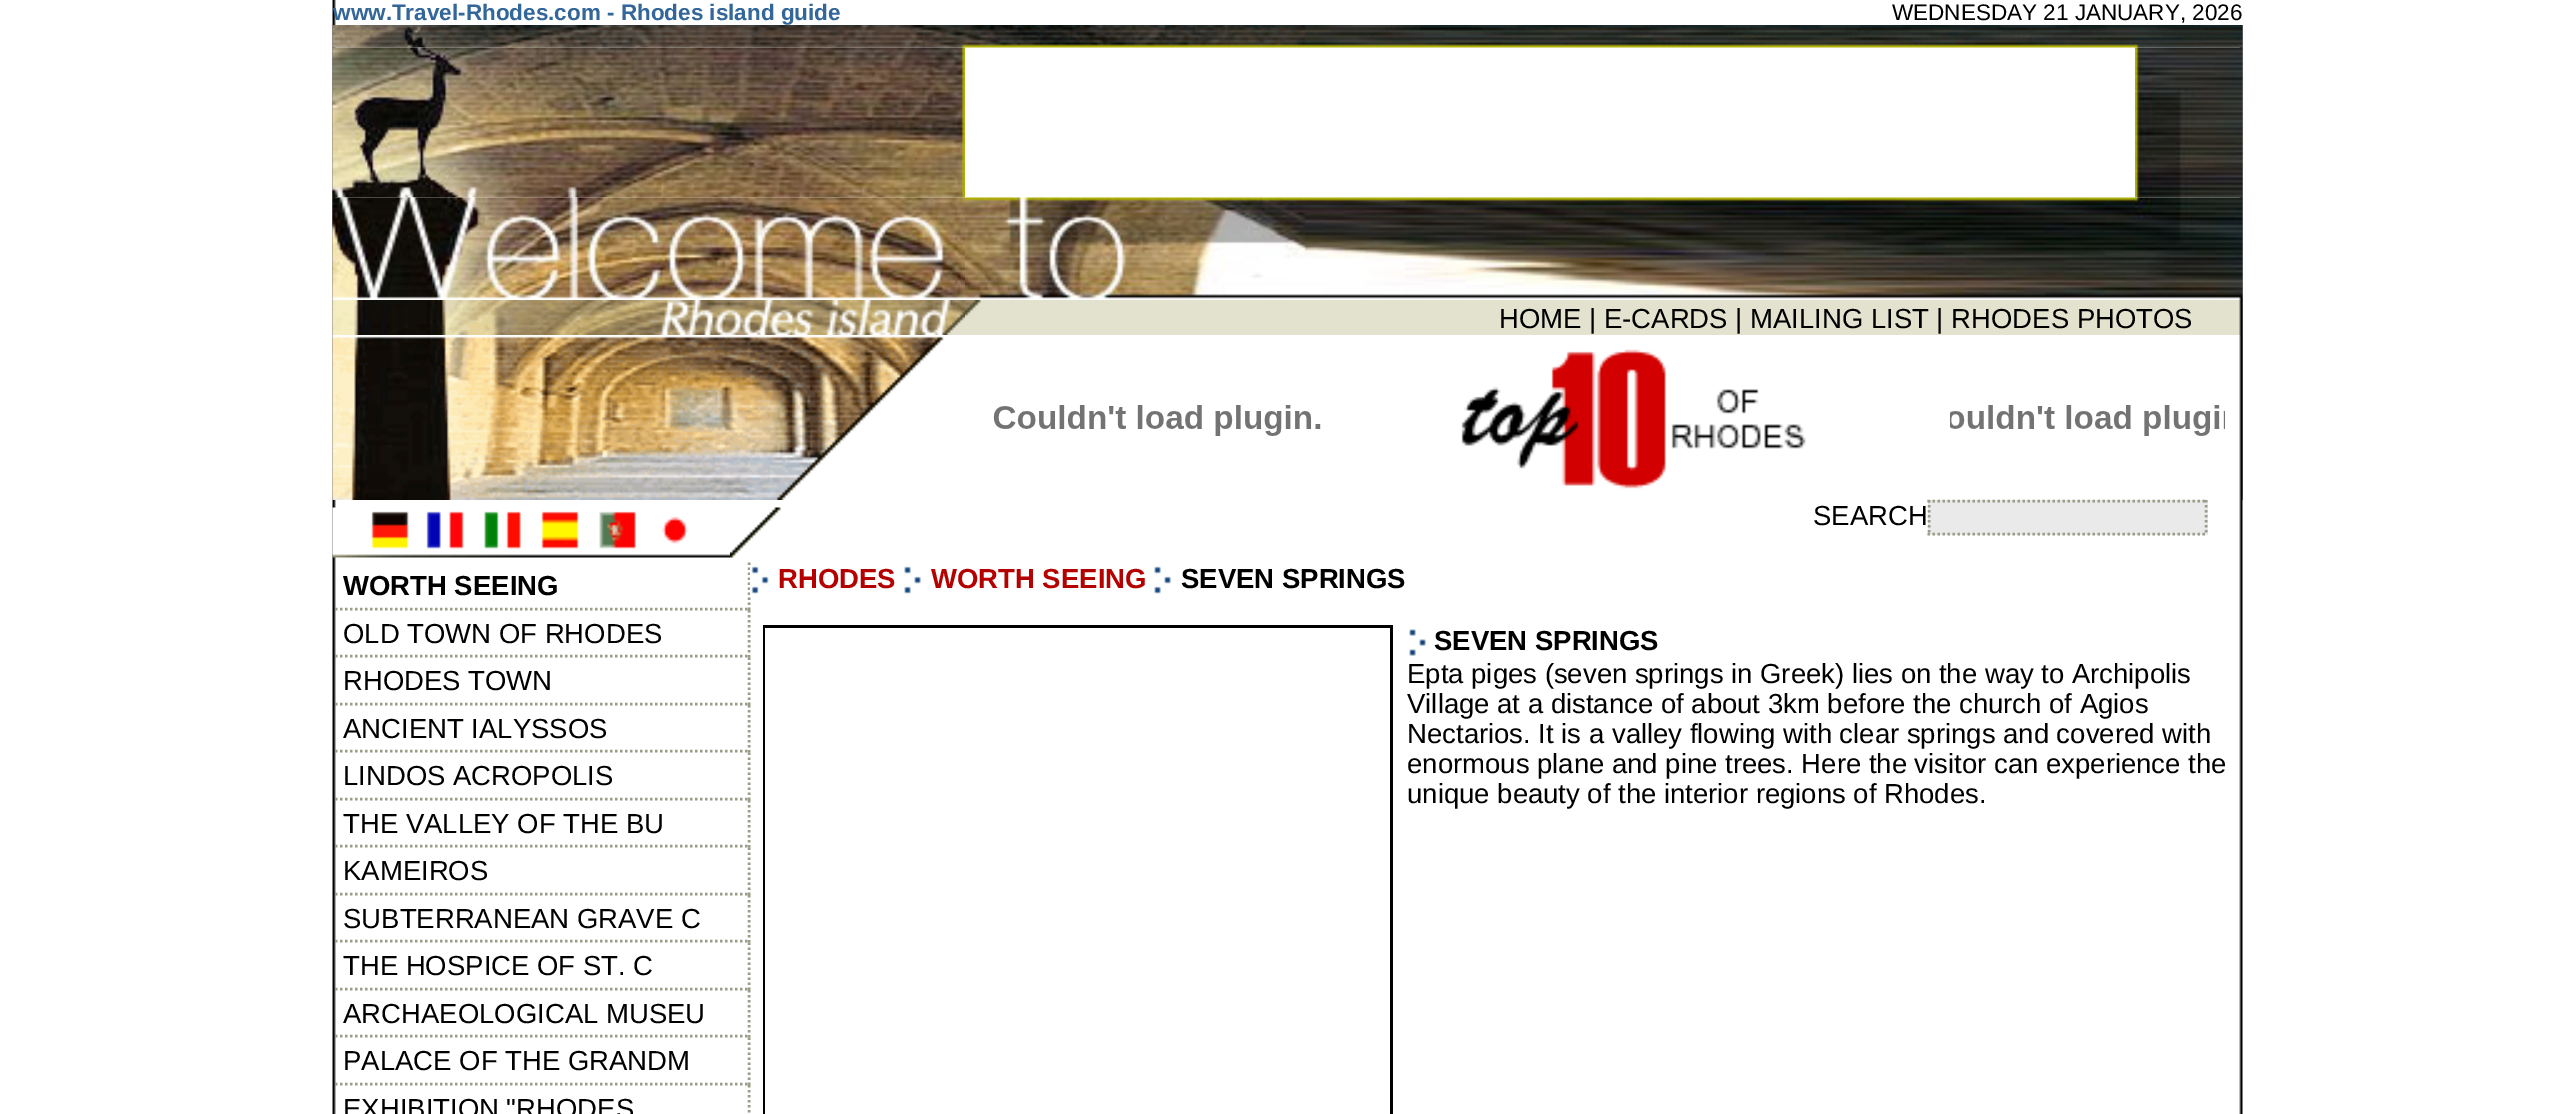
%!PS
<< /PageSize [2574 1114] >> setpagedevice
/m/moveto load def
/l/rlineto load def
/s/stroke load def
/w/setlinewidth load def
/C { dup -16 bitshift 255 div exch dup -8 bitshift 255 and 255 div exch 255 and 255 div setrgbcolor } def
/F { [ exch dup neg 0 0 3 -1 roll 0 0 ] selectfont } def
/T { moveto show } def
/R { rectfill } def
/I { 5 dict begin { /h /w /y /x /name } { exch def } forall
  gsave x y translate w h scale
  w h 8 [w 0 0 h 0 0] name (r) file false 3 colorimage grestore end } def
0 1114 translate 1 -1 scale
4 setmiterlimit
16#FFFFFF C
0 0 2574 1114 R
(1.rgb) 332 0 1911 1114 I
/LiberationSans-Bold 22.5 F
16#336699 C
(www.Travel-Rhodes.com - Rhodes island guide) 333 20 T
16#FFFFFF C
2239 0 4 25 R
/LiberationSans-Regular 22.5 F
16#000000 C
(WEDNESDAY 21 JANUARY, 2026) 1892 20 T
(2.rgb) 332 25 1911 23 I
(3.rgb) 332 47 633 151 I
(4.rgb) 2135 47 108 151 I
(5.rgb) 332 197 633 103 I
(6.rgb) 965 197 1170 102 I
(7.rgb) 2135 197 108 103 I
(8.rgb) 332 300 633 35 I
(9.rgb) 965 300 1278 35 I
/LiberationSans-Regular 27.5 F
(HOME | E-CARDS | MAILING LIST | RHODES PHOTOS) 1499 328 T
(10.rgb) 332 335 612 165 I
16#3F3F3F C
2242 335 1 165 R
(11.rgb) 993 405 328 31 I
(12.rgb) 1461 349 345 140 I
(13.rgb) 1950 405 275 31 I
(14.rgb) 332 507 398 51 I
(15.rgb) 730 507 52 51 I
16#000000 C
(SEARCH) 1813 525 T
16#EAEAEA C
1928 500 280 35 R
16#9C9C8A C
2.5 w
[2.5 2.5] 0 setdash
1927.5 501 m 280 0 l s
2206 500 m 0 35 l s
1927.5 534 m 280 0 l s
1929 500 m 0 35 l s
749 562.5 m 0 47.5 l s
335 609 m 415 0 l s
/LiberationSans-Bold 27.5 F
16#000000 C
(WORTH SEEING) 343 595 T
16#9C9C8A C
749 610 m 0 47.5 l s
335 656 m 415 0 l s
/LiberationSans-Regular 27.5 F
16#000000 C
(OLD TOWN OF RHODES) 343 643 T
16#9C9C8A C
749 657.5 m 0 47.5 l s
335 704 m 415 0 l s
16#000000 C
(RHODES TOWN) 343 690 T
16#9C9C8A C
749 705 m 0 47.5 l s
335 751 m 415 0 l s
16#000000 C
(ANCIENT IALYSSOS) 343 738 T
16#9C9C8A C
749 752.5 m 0 47.5 l s
335 799 m 415 0 l s
16#000000 C
(LINDOS ACROPOLIS) 343 785 T
16#9C9C8A C
749 800 m 0 47.5 l s
335 846 m 415 0 l s
16#000000 C
(THE VALLEY OF THE BU) 343 833 T
16#9C9C8A C
749 847.5 m 0 47.5 l s
335 894 m 415 0 l s
16#000000 C
(KAMEIROS) 343 880 T
16#9C9C8A C
749 895 m 0 47.5 l s
335 941 m 415 0 l s
16#000000 C
(SUBTERRANEAN GRAVE C) 343 928 T
16#9C9C8A C
749 942.5 m 0 47.5 l s
335 989 m 415 0 l s
16#000000 C
(THE HOSPICE OF ST. C) 343 975 T
16#9C9C8A C
749 990 m 0 47.5 l s
335 1036 m 415 0 l s
16#000000 C
(ARCHAEOLOGICAL MUSEU) 343 1023 T
16#9C9C8A C
749 1037.5 m 0 47.5 l s
335 1084 m 415 0 l s
16#000000 C
(PALACE OF THE GRANDM) 343 1070 T
16#9C9C8A C
749 1085 m 0 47.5 l s
16#000000 C
(EXHIBITION "RHODES) 343 1118 T
(16.rgb) 750 566 19 29 I
/LiberationSans-Bold 27.5 F
16#B50000 C
(RHODES) 778 588 T
(17.rgb) 904 566 17 28 I
(WORTH SEEING) 931 588 T
(17.rgb) 1154 566 17 28 I
16#000000 C
(SEVEN SPRINGS) 1181 588 T
763 625 630 489 R
16#FFFFFF C
765 628 625 486 R
(18.rgb) 1409 629 17 27 I
16#000000 C
(SEVEN SPRINGS) 1434 650 T
/LiberationSans-Regular 27.5 F
(Epta piges \(seven springs in Greek\) lies on the way to Archipolis) 1407 683 T
(Village at a distance of about 3km before the church of Agios) 1407 713 T
(Nectarios. It is a valley flowing with clear springs and covered with) 1407 743 T
(enormous plane and pine trees. Here the visitor can experience the) 1407 773 T
(unique beauty of the interior regions of Rhodes.) 1407 803 T
showpage
